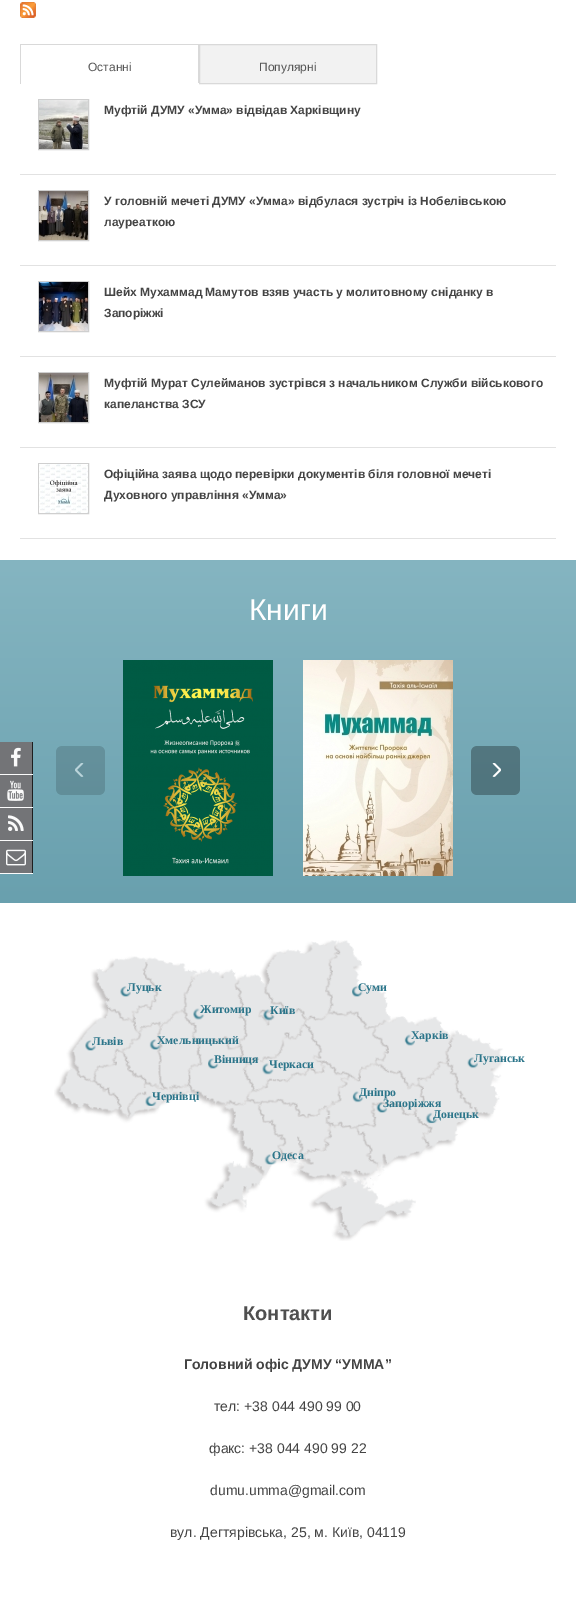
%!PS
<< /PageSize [576 1615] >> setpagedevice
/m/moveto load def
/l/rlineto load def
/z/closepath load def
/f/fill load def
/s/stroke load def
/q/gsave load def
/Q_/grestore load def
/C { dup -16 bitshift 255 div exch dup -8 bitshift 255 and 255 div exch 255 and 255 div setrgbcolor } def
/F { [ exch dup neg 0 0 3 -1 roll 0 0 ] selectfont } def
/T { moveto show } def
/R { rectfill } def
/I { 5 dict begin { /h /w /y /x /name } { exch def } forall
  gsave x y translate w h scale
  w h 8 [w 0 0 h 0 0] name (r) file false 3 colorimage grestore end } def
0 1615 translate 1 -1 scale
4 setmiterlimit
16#FFFFFF C
0 0 576 1615 R
q 0 560 m 576 0 l 0 343 l -576 0 l z clip newpath
<< /ShadingType 2 /ColorSpace /DeviceRGB /Coords [288 560 288 903] /Extend [true true] /Function << /FunctionType 2 /Domain [0 1] /C0 [.522 .71 .757] /C1 [.412 .627 .682] /N 1 >> >> shfill Q_
16#737477 C
0 742 32 32 R
16#1E1E1F C
32 742 1 132 R
16#FBFBFB C
0 774 33 1 R
(1.rgb) 11 747 10 20 I
16#737477 C
0 775 32 32 R
16#FBFBFB C
0 807 33 1 R
(2.rgb) 7 780 17 21 I
16#737477 C
0 808 32 32 R
16#FBFBFB C
0 840 33 1 R
(3.rgb) 8 815 16 16 I
16#737477 C
0 841 32 32 R
16#FBFBFB C
0 873 33 1 R
(4.rgb) 6 849 20 17 I
(5.rgb) 20 2 16 16 I
16#D9D9D9 C
20 44 179 1 R
198 44 1 40 R
16#FFFFFF C
198 83 1 1 R
16#D9D9D9 C
20 44 1 40 R
/LiberationSans-Regular 12 F
16#555555 C
(Останні) 88 71 T
16#F2F2F2 C
199.5 44.5 m 177 0 l 0 39 l -177 0 l z q f Q_
16#D9D9D9 C
s
16#555555 C
(Популярні) 259 71 T
16#E2E2E2 C
20 174 536 1 R
16#CFCFCF C
38.5 99.5 50 50 rectstroke
(6.rgb) 39 100 49 49 I
/LiberationSans-Bold 12 F
16#444444 C
(Муфтій ДУМУ «Умма» відвідав Харківщину) 104 114 T
16#E2E2E2 C
20 265 536 1 R
16#CFCFCF C
38.5 190.5 50 50 rectstroke
(7.rgb) 39 191 49 49 I
16#444444 C
(У головній мечеті ДУМУ «Умма» відбулася зустріч із Нобелівською) 104 205 T
(лауреаткою) 104 226 T
16#E2E2E2 C
20 356 536 1 R
16#CFCFCF C
38.5 281.5 50 50 rectstroke
(8.rgb) 39 282 49 49 I
16#444444 C
(Шейх Мухаммад Мамутов взяв участь у молитовному сніданку в) 104 296 T
(Запоріжжі) 104 317 T
16#E2E2E2 C
20 447 536 1 R
16#CFCFCF C
38.5 372.5 50 50 rectstroke
(9.rgb) 39 373 49 49 I
16#444444 C
(Муфтій Мурат Сулейманов зустрівся з начальником Служби військового) 104 387 T
(капеланства ЗСУ) 104 408 T
16#E2E2E2 C
20 538 536 1 R
16#CFCFCF C
38.5 463.5 50 50 rectstroke
(10.rgb) 39 464 49 49 I
16#444444 C
(Офіційна заява щодо перевірки документів біля головної мечеті) 104 478 T
(Духовного управління «Умма») 104 499 T
/LiberationSans-Regular 30 F
16#FFFFFF C
(Книги) 249 620 T
(11.rgb) 56 746 49 49 I
(12.rgb) 123 660 150 216 I
(13.rgb) 303 660 150 216 I
(14.rgb) 471 746 49 49 I
(15.rgb) 54 940 451 301 I
(16.rgb) 120 986 11 11 I
/LiberationSerif-Bold 11.75 F
16#2B758A C
(Луцьк) 127 991 T
(17.rgb) 352 986 11 11 I
(Суми) 358 991 T
(18.rgb) 193 1008 12 12 I
(Житомир) 200 1013 T
(19.rgb) 263 1009 12 12 I
(Київ) 270 1014 T
(20.rgb) 85 1040 11 11 I
(Львів) 92 1045 T
(21.rgb) 149 1039 12 11 I
(Хмельницький) 157 1044 T
(22.rgb) 404 1034 11 12 I
(Харків) 411 1039 T
(23.rgb) 208 1058 11 11 I
(Вінниця) 214 1063 T
(24.rgb) 262 1063 12 12 I
(Черкаси) 269 1068 T
(25.rgb) 467 1057 11 12 I
(Луганськ) 474 1062 T
(26.rgb) 145 1095 12 11 I
(Чернівці) 152 1100 T
(27.rgb) 352 1091 12 12 I
(Дніпро) 359 1096 T
(28.rgb) 376 1102 12 11 I
(Запоріжжя) 383 1107 T
(29.rgb) 425 1112 13 12 I
(Донецьк) 433 1118 T
(30.rgb) 264 1154 13 11 I
(Одеса) 272 1159 T
/LiberationSans-Bold 20 F
16#4F4F4F C
(Контакти) 243 1320 T
/LiberationSans-Bold 14 F
16#444444 C
(Головний офіс ДУМУ “УММА”) 184 1369 T
/LiberationSans-Regular 14 F
(тел: +38 044 490 99 00) 214 1411 T
(факс: +38 044 490 99 22) 209 1453 T
(dumu.umma@gmail.com) 210 1495 T
(вул. Дегтярівська, 25, м. Київ, 04119) 170 1537 T
showpage
